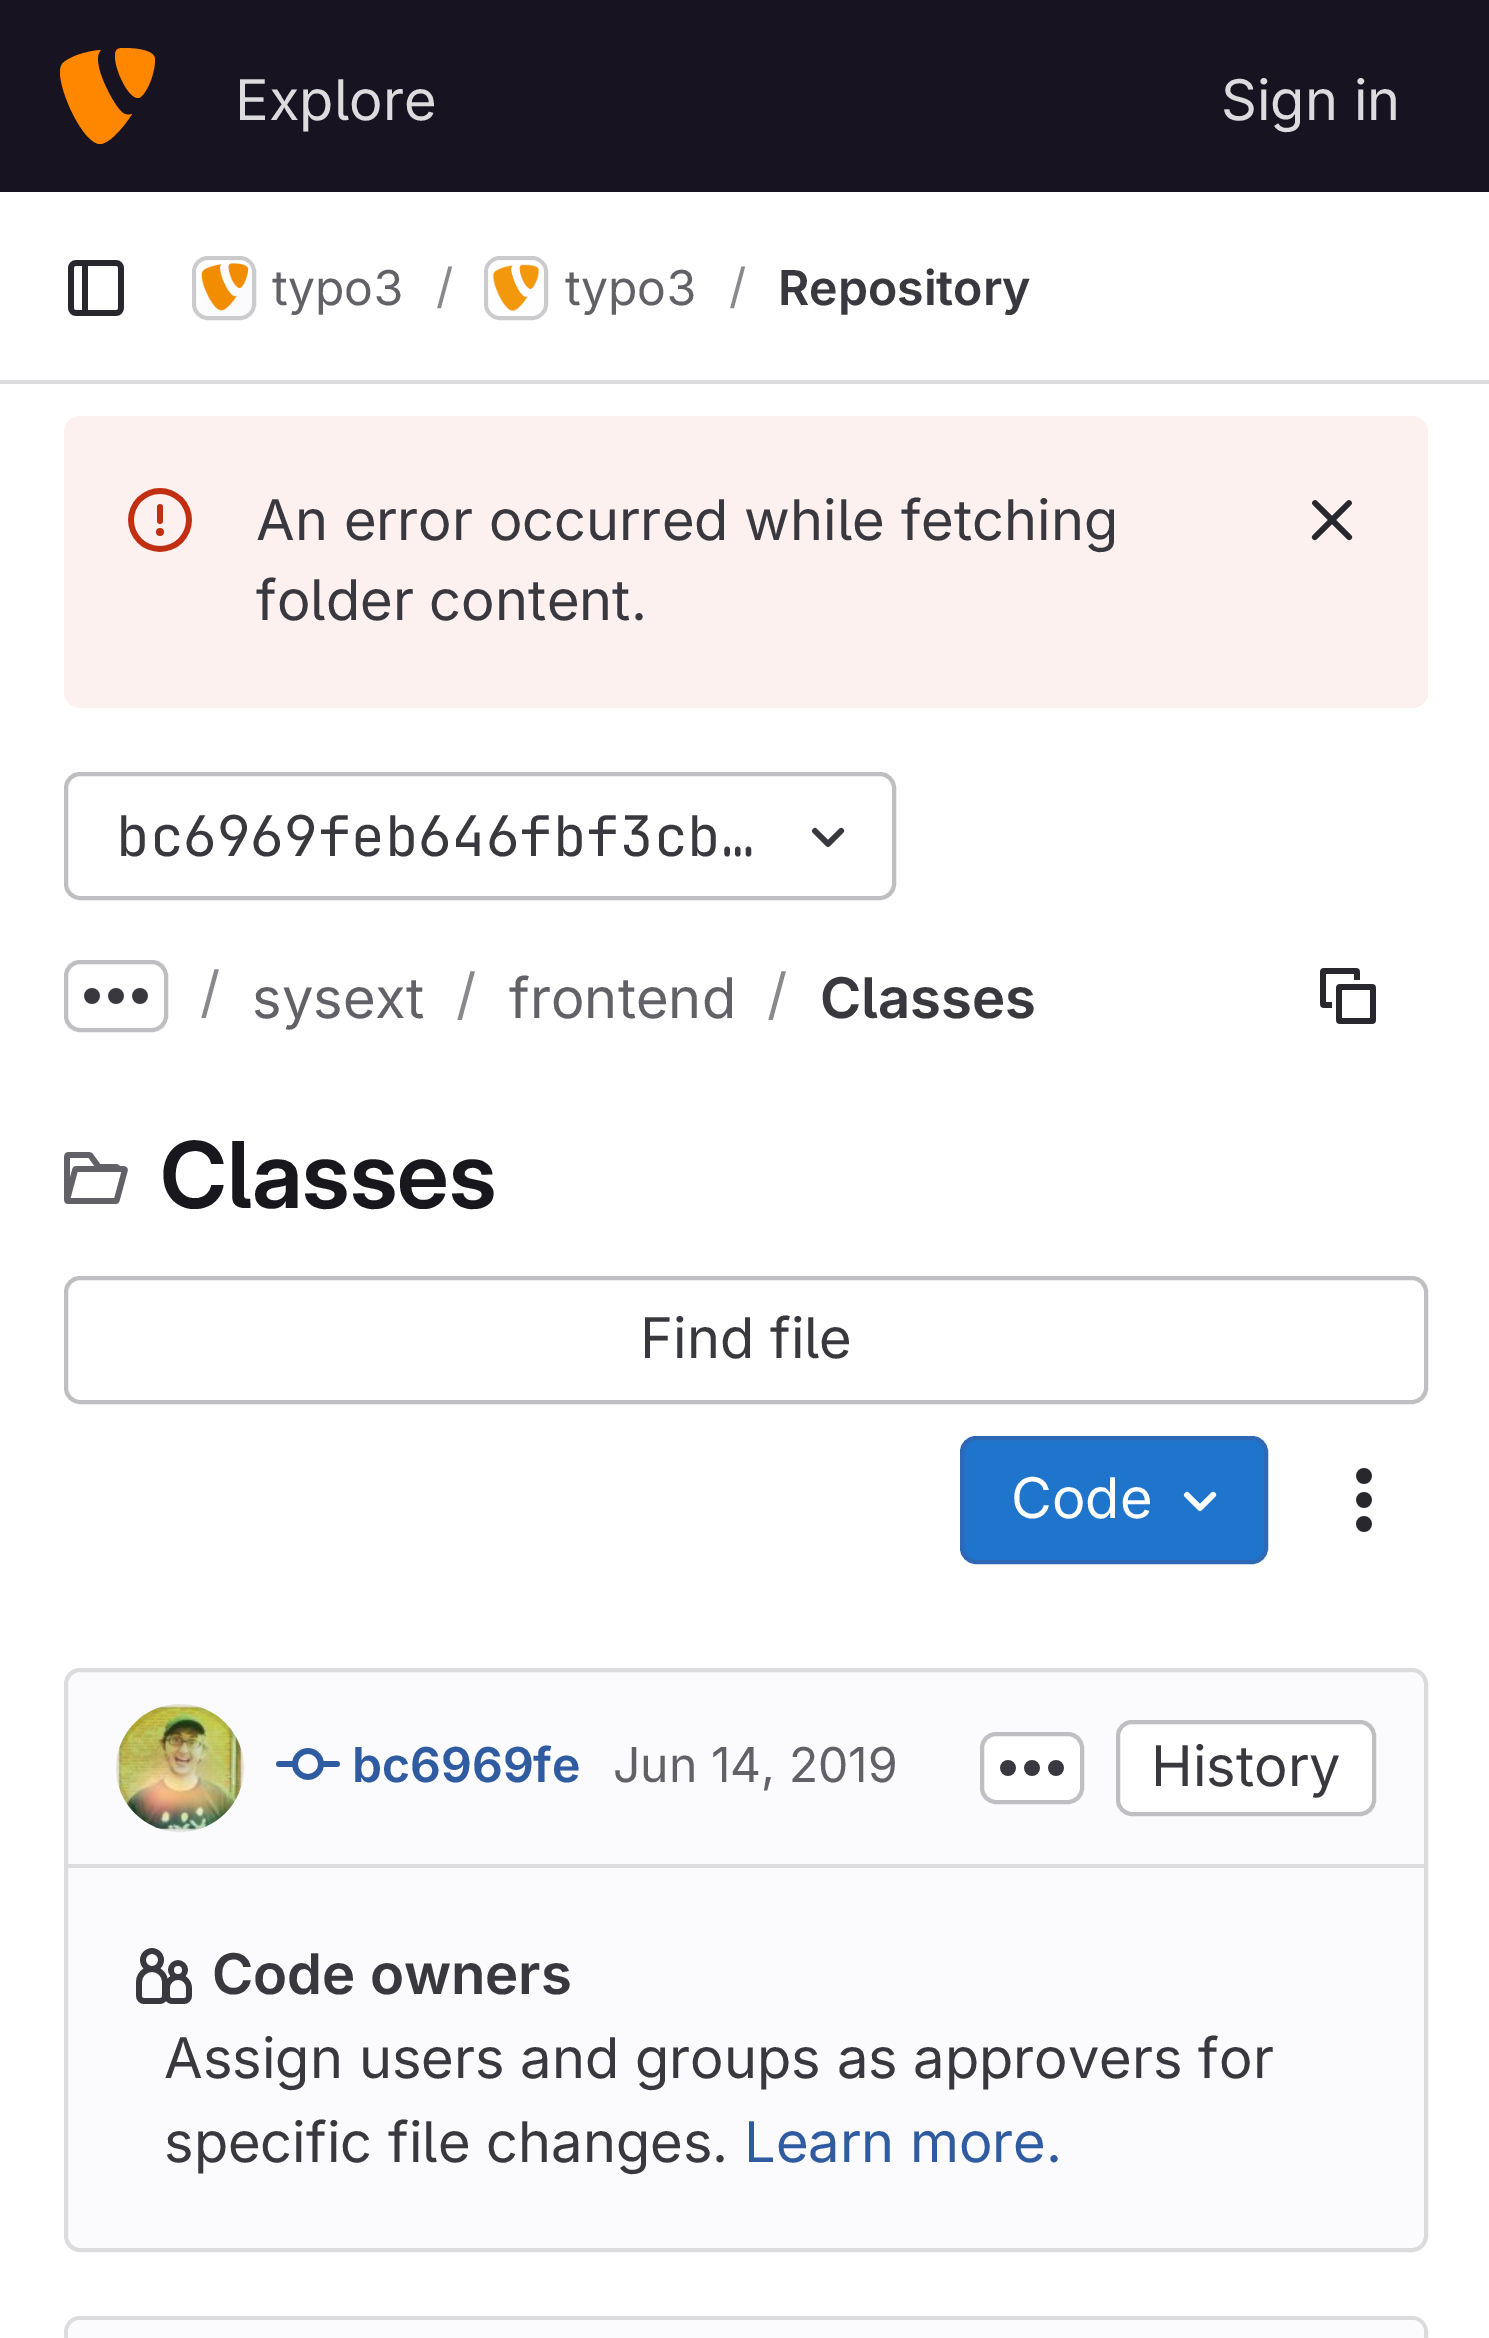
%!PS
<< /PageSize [1489 2338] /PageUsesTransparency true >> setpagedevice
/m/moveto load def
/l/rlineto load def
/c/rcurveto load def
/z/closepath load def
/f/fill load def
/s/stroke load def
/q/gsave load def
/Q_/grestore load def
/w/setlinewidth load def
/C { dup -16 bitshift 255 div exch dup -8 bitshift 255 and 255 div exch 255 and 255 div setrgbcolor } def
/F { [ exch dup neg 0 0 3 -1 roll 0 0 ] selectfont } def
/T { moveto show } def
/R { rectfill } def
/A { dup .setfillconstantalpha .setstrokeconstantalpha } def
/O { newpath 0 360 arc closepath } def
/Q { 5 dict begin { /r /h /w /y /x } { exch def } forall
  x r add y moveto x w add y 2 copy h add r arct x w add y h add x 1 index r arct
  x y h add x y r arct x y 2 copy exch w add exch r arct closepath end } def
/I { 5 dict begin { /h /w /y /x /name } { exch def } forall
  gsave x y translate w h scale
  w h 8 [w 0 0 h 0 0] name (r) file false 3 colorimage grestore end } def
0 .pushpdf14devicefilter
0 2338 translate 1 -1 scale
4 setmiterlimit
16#FFFFFF C
0 0 1489 2338 R
16#171321 C
0 0 1489 192 R
16#FF8700 C
132 114 m -3 1 -6 1 -9 -1 c -9 -6 -34 -53 -22 -63 c -15 1 -33 7 -39 14 c -1 2 -2 4 -2 8 c 0 22 24 72 40 72 c 8 0 21 -13 32 -30 c 124 48 m 15 0 31 3 31 11 c 0 18 -11 39 -17 39 c -10 0 -23 -28 -23 -42 c 0 -7 3 -8 9 -8 c f
/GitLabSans-Regular 56 F
16#DCDCDE C
(Explore) 235 120 T
(Sign in) 1221 120 T
0 380 1489 4 R
(1.rgb) 68 260 56 56 I
4 w
194 258 60 60 14 Q s
(2.rgb) 196 260 56 56 I
0.08 A
16#050506 C
194 258 60 60 14 Q s
/GitLabSans-Regular 48 F
1 A
16#626168 C
(typo3) 272 305 T
16#89888D C
(/) 436 303 T
16#DCDCDE C
486 258 60 60 14 Q s
(3.rgb) 488 260 56 56 I
0.08 A
16#050506 C
486 258 60 60 14 Q s
1 A
16#626168 C
(typo3) 565 305 T
16#89888D C
(/) 729 303 T
/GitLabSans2-SemiBold 48 F
16#3A383F C
(Repository) 778 305 T
16#FCF1EF C
64 416 1364 292 16 Q f
(4.rgb) 128 488 64 64 I
/GitLabSans-Regular 56 F
16#3A383F C
(An error occurred while fetching) 256 540 T
(folder content.) 256 620 T
(5.rgb) 1311 500 42 41 I
16#BFBFC3 C
66 774 828 124 14 Q s
/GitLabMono-Regular 56 F
16#3A383F C
(bc6969feb646fbf3cb…) 116 856 T
(6.rgb) 811 827 34 21 I
16#BFBFC3 C
66 962 100 68 14 Q s
(7.rgb) 84 988 64 16 I
/GitLabSans-Regular 56 F
16#89888D C
(/) 200 1012 T
16#626168 C
(sysext) 252 1018 T
16#89888D C
(/) 456 1014 T
16#626168 C
(frontend) 509 1018 T
16#89888D C
(/) 767 1014 T
/GitLabSans2-SemiBold 56 F
16#3A383F C
(Classes) 820 1018 T
(8.rgb) 1320 968 56 56 I
(9.rgb) 64 1152 64 52 I
/GitLabSans-SemiBold 92 F
16#18171D C
(Classes) 160 1208 T
16#BFBFC3 C
66 1278 1360 124 14 Q s
/GitLabSans-Regular 56 F
16#3A383F C
(Find file) 640 1358 T
16#1F75CB C
962 1438 304 124 14 Q q f Q_
16#2F68B4 C
s
16#FFFFFF C
(Code) 1011 1518 T
(10.rgb) 1183 1491 34 21 I
(11.rgb) 1356 1468 16 64 I
16#FBFAFD C
66 1670 1360 580 14 Q q f Q_
16#DCDCDE C
s
(12.rgb) 116 1704 128 128 I
0.08 A
16#050506 C
180 1768 62 O s
1 A
(13.rgb) 276 1748 64 32 I
/GitLabSans2-SemiBold 48 F
16#2F5CA0 C
(bc6969fe) 352 1782 T
/GitLabSans-Regular 48 F
16#626168 C
(Jun 14, 2019) 613 1782 T
16#FFFFFF C
982 1734 100 68 14 Q q f Q_
16#BFBFC3 C
s
(14.rgb) 1000 1760 64 16 I
16#FFFFFF C
1118 1722 256 92 14 Q q f Q_
16#BFBFC3 C
s
/GitLabSans-Regular 56 F
16#3A383F C
(History) 1151 1786 T
16#DCDCDE C
68 1864 1356 4 R
(15.rgb) 136 1948 56 56 I
/GitLabSans2-SemiBold 56 F
16#3A383F C
(Code owners) 212 1994 T
/GitLabSans-Regular 56 F
(Assign users and groups as approvers for) 164 2078 T
(specific file changes.) 164 2162 T
16#2F5CA0 C
(Learn more.) 744 2162 T
16#DCDCDE C
66 2318 1360 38 14 Q s
16#FBFAFD C
80 2320 m 1056 0 l 0 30 l -1068 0 l 0 -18 l 0 -6.5 5.5 -12 12 -12 c z f
1136 2320 m 276 0 l 6.5 0 12 5.5 12 12 c 0 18 l -288 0 l z f
.poppdf14devicefilter showpage
